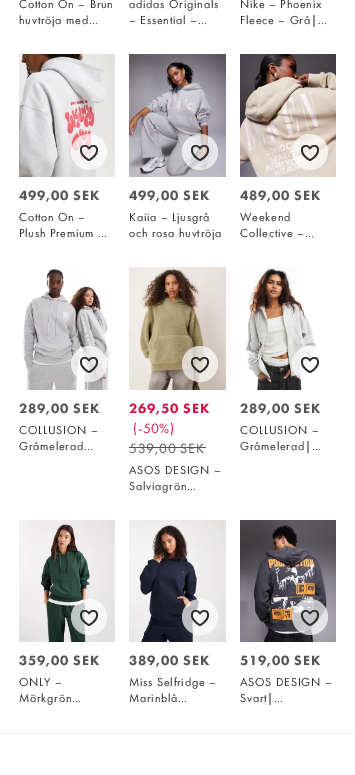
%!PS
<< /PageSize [355 775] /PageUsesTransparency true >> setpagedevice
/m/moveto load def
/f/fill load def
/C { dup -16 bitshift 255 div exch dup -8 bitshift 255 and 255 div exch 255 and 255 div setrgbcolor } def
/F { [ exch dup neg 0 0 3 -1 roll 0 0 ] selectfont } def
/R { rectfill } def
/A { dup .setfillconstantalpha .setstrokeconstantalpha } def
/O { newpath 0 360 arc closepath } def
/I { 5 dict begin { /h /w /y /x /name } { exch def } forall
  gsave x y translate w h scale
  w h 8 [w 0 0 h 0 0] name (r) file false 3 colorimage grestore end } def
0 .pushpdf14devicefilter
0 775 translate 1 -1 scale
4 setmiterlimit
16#FFFFFF C
0 0 355 775 R
16#EEEEEE C
0 733 355 1 R
/FuturaPT-Regular 12 F
16#2D2D2D C
19 8 m .75 0 (Cotton On – Brun) ashow
19 24 m .75 0 (huvtröja med…) ashow
129 8 m .75 0 (adidas Originals) ashow
129 24 m .75 0 (– Essential –…) ashow
240 8 m .75 0 (Nike – Phoenix) ashow
240 24 m .75 0 (Fleece – Grå|…) ashow
(2.rgb) 19 54 96 123 I
0.7 A
16#FFFFFF C
89 152 18 O f
1 A
(1.rgb) 80 145 18 16 I
/FuturaPT-Black 14 F
16#555555 C
19 200 m .75 0 (499,00 SEK) ashow
/FuturaPT-Regular 12 F
16#2D2D2D C
19 221 m .75 0 (Cotton On –) ashow
19 237 m .75 0 (Plush Premium …) ashow
(4.rgb) 129 54 97 123 I
0.7 A
16#FFFFFF C
200 152 18 O f
1 A
(3.rgb) 191 145 18 16 I
/FuturaPT-Black 14 F
16#555555 C
129 200 m .75 0 (499,00 SEK) ashow
/FuturaPT-Regular 12 F
16#2D2D2D C
129 221 m .75 0 (Kaiia – Ljusgrå) ashow
129 237 m .75 0 (och rosa huvtröja) ashow
(6.rgb) 240 54 96 123 I
0.7 A
16#FFFFFF C
310 152 18 O f
1 A
(5.rgb) 301 145 18 16 I
/FuturaPT-Black 14 F
16#555555 C
240 200 m .75 0 (489,00 SEK) ashow
/FuturaPT-Regular 12 F
16#2D2D2D C
240 221 m .75 0 (Weekend) ashow
240 237 m .75 0 (Collective –…) ashow
(8.rgb) 19 267 96 123 I
0.7 A
16#FFFFFF C
89 364 18 O f
1 A
(7.rgb) 80 357 18 16 I
/FuturaPT-Black 14 F
16#555555 C
19 413 m .75 0 (289,00 SEK) ashow
/FuturaPT-Regular 12 F
16#2D2D2D C
19 434 m .75 0 (COLLUSION –) ashow
19 450 m .75 0 (Gråmelerad…) ashow
(10.rgb) 129 267 97 123 I
0.7 A
16#FFFFFF C
200 364 18 O f
1 A
(9.rgb) 191 357 18 16 I
/FuturaPT-Black 14 F
16#D01345 C
129 413 m .75 0 (269,50 SEK) ashow
/FuturaPT-Regular 14 F
133 433 m .5 0 (\(-50%\)) ashow
16#555555 C
129 453 m .75 0 (539,00 SEK) ashow
129 447 77 1 R
/FuturaPT-Regular 12 F
16#2D2D2D C
129 474 m .75 0 (ASOS DESIGN –) ashow
129 490 m .75 0 (Salviagrön…) ashow
(12.rgb) 240 267 96 123 I
0.7 A
16#FFFFFF C
310 364 18 O f
1 A
(11.rgb) 301 357 18 16 I
/FuturaPT-Black 14 F
16#555555 C
240 413 m .75 0 (289,00 SEK) ashow
/FuturaPT-Regular 12 F
16#2D2D2D C
240 434 m .75 0 (COLLUSION –) ashow
240 450 m .75 0 (Gråmelerad|…) ashow
(14.rgb) 19 520 96 122 I
0.7 A
16#FFFFFF C
89 617 18 O f
1 A
(13.rgb) 80 610 18 16 I
/FuturaPT-Black 14 F
16#555555 C
19 665 m .75 0 (359,00 SEK) ashow
/FuturaPT-Regular 12 F
16#2D2D2D C
19 686 m .75 0 (ONLY –) ashow
19 702 m .75 0 (Mörkgrön…) ashow
(16.rgb) 129 520 97 122 I
0.7 A
16#FFFFFF C
200 617 18 O f
1 A
(15.rgb) 191 610 18 16 I
/FuturaPT-Black 14 F
16#555555 C
129 665 m .75 0 (389,00 SEK) ashow
/FuturaPT-Regular 12 F
16#2D2D2D C
129 686 m .75 0 (Miss Selfridge –) ashow
129 702 m .75 0 (Marinblå…) ashow
(18.rgb) 240 520 96 122 I
0.7 A
16#FFFFFF C
310 617 18 O f
1 A
(17.rgb) 301 610 18 16 I
/FuturaPT-Black 14 F
16#555555 C
240 665 m .75 0 (519,00 SEK) ashow
/FuturaPT-Regular 12 F
16#2D2D2D C
240 686 m .75 0 (ASOS DESIGN –) ashow
240 702 m .75 0 (Svart|…) ashow
16#F8F8F8 C
0 774 355 1 R
.poppdf14devicefilter showpage
